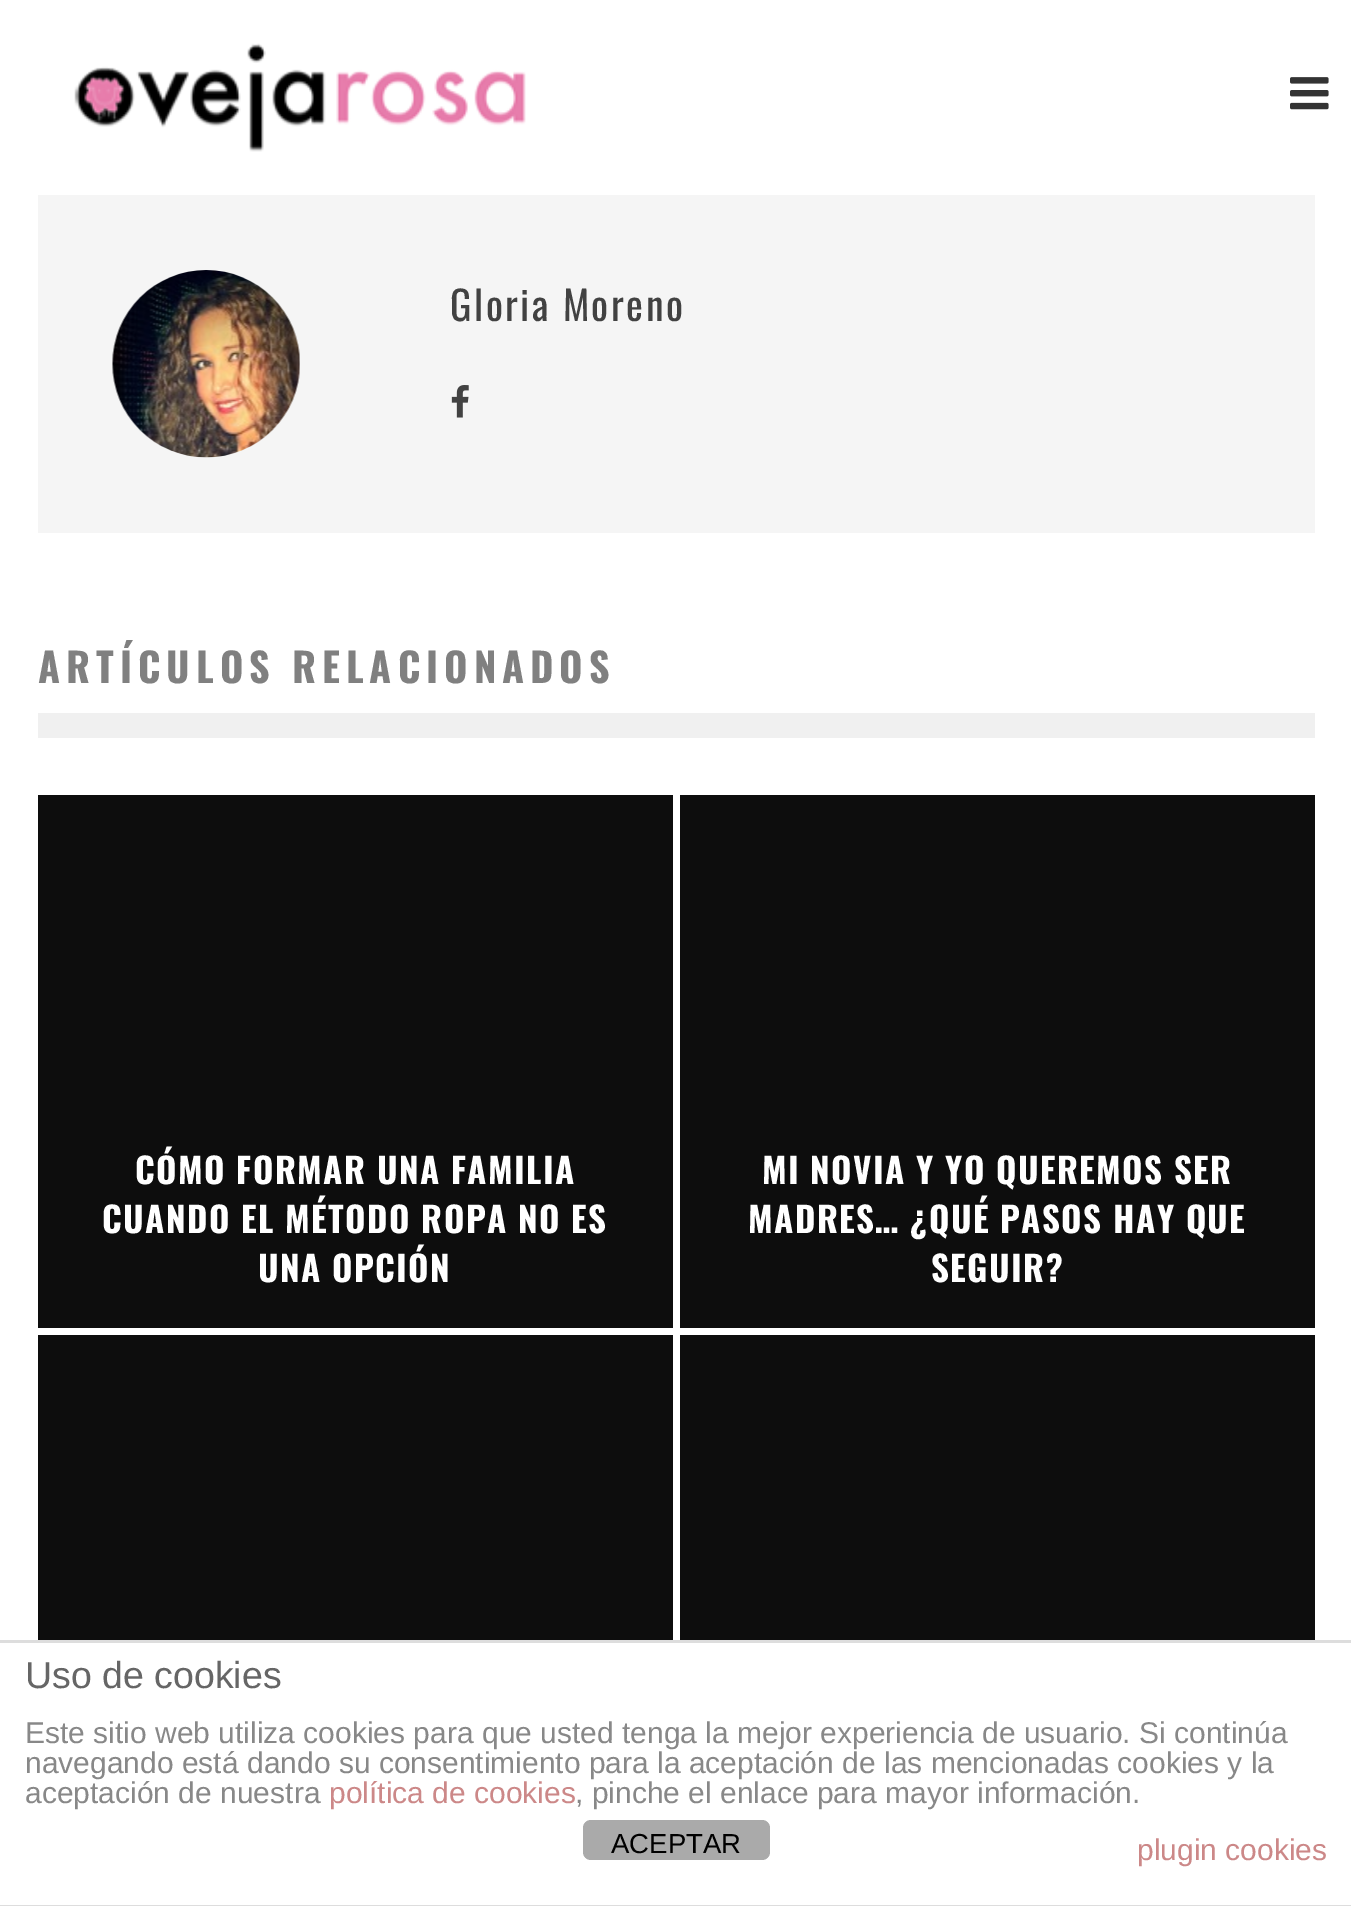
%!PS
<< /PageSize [1351 1906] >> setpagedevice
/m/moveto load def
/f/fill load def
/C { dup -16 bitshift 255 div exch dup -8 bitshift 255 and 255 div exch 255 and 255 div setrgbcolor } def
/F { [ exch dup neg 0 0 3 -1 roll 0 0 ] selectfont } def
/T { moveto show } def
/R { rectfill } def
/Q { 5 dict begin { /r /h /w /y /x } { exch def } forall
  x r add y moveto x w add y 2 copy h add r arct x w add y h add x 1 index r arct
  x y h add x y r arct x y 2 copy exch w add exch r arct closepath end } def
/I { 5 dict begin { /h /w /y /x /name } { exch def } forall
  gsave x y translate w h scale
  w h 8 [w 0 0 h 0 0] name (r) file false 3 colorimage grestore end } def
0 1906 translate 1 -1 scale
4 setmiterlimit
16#FFFFFF C
0 0 1351 1906 R
(1.rgb) 74 43 452 109 I
(2.rgb) 1290 77 39 33 I
16#F5F5F5 C
38 195 1277 338 R
(3.rgb) 112 270 188 188 I
/Oswald-Regular 40 F
16#424242 C
450 321 m 2.5 0 (Gloria Moreno) ashow
(4.rgb) 451 385 18 33 I
16#F0F0F0 C
38 713 1277 25 R
/Oswald-Bold 40 F
16#808080 C
38 683 m 6 0 (ARTÍCULOS RELACIONADOS) ashow
16#0D0D0D C
38 795 635 533 R
/Oswald-Bold 35 F
16#FFFFFF C
135 1184 m 1.4 0 (CÓMO FORMAR UNA FAMILIA) ashow
102 1233 m 1.4 0 (CUANDO EL MÉTODO ROPA NO ES) ashow
258 1282 m 1.4 0 (UNA OPCIÓN) ashow
16#0D0D0D C
680 795 635 533 R
16#FFFFFF C
762 1184 m 1.4 0 (MI NOVIA Y YO QUEREMOS SER) ashow
748 1233 m 1.4 0 (MADRES… ¿QUÉ PASOS HAY QUE) ashow
931 1282 m 1.4 0 (SEGUIR?) ashow
16#0D0D0D C
38 1335 635 305 R
680 1335 635 305 R
16#DDDDDD C
0 1640 1351 3 R
0 1905 1351 1 R
/LiberationSans-Regular 37.5 F
16#666666 C
(Uso de cookies) 25 1688 T
/LiberationSans-Regular 30 F
16#888888 C
(Este sitio web utiliza cookies para que usted tenga la mejor experiencia de usuario. Si continúa) 25 1743 T
(navegando está dando su consentimiento para la aceptación de las mencionadas cookies y la) 25 1773 T
(aceptación de nuestra) 25 1803 T
16#CC8888 C
(política de cookies) 329 1803 T
16#888888 C
(, pinche el enlace para mayor información.) 575 1803 T
16#CC8888 C
(plugin cookies) 1137 1860 T
16#AAAAAA C
583 1820 187 40 8 Q f
/LiberationSans-Regular 27.5 F
16#000000 C
(ACEPTAR) 611 1853 T
showpage
